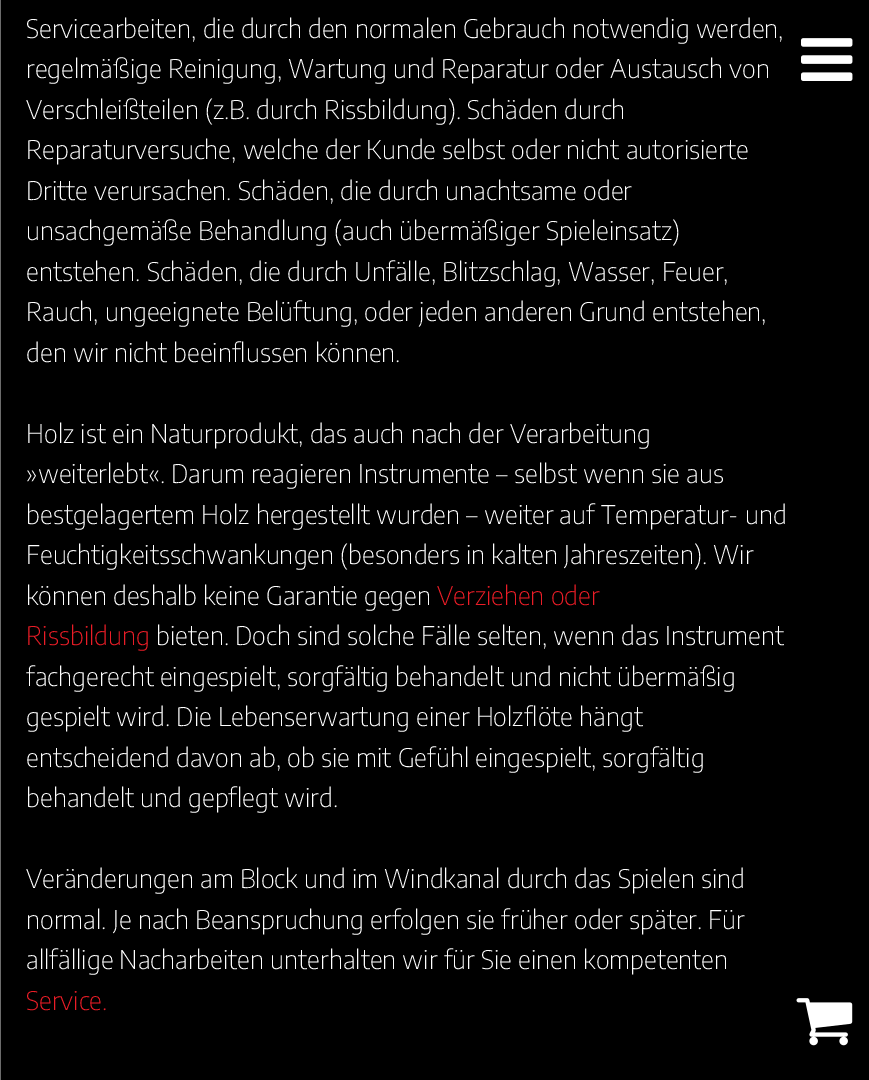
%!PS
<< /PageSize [869 1080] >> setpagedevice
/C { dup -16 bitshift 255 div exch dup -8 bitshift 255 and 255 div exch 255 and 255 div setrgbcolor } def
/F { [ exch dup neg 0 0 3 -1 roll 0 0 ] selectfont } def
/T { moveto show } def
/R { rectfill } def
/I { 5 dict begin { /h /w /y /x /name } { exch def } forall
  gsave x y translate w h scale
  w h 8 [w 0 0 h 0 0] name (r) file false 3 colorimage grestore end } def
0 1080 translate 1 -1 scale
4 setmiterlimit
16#000000 C
0 0 869 1080 R
16#6C6C6C C
0 0 1 1080 R
/EncodeSansCondensed-Thin 25.5 F
16#FFFFFF C
(Servicearbeiten, die durch den normalen Gebrauch notwendig werden,) 26 38 T
(regelmäßige Reinigung, Wartung und Reparatur oder Austausch von) 26 78 T
(Verschleißteilen \(z.B. durch Rissbildung\). Schäden durch) 26 119 T
(Reparaturversuche, welche der Kunde selbst oder nicht autorisierte) 26 159 T
(Dritte verursachen. Schäden, die durch unachtsame oder) 26 200 T
(unsachgemäße Behandlung \(auch übermäßiger Spieleinsatz\)) 26 240 T
(entstehen. Schäden, die durch Unfälle, Blitzschlag, Wasser, Feuer,) 26 281 T
(Rauch, ungeeignete Belüftung, oder jeden anderen Grund entstehen,) 26 321 T
(den wir nicht beeinflussen können.) 26 362 T
(Holz ist ein Naturprodukt, das auch nach der Verarbeitung) 26 443 T
(»weiterlebt«. Darum reagieren Instrumente – selbst wenn sie aus) 26 483 T
(bestgelagertem Holz hergestellt wurden – weiter auf Temperatur- und) 26 524 T
(Feuchtigkeitsschwankungen \(besonders in kalten Jahreszeiten\). Wir) 26 564 T
(können deshalb keine Garantie gegen) 26 605 T
16#EB1D27 C
(Verziehen oder) 437 605 T
(Rissbildung) 26 645 T
16#FFFFFF C
(bieten. Doch sind solche Fälle selten, wenn das Instrument) 156 645 T
(fachgerecht eingespielt, sorgfältig behandelt und nicht übermäßig) 26 686 T
(gespielt wird. Die Lebenserwartung einer Holzflöte hängt) 26 726 T
(entscheidend davon ab, ob sie mit Gefühl eingespielt, sorgfältig) 26 767 T
(behandelt und gepflegt wird.) 26 807 T
(Veränderungen am Block und im Windkanal durch das Spielen sind) 26 888 T
(normal. Je nach Beanspruchung erfolgen sie früher oder später. Für) 26 929 T
(allfällige Nacharbeiten unterhalten wir für Sie einen kompetenten) 26 969 T
16#EB1D27 C
(Service.) 26 1010 T
(1.rgb) 801 38 52 43 I
(2.rgb) 796 998 57 48 I
showpage
